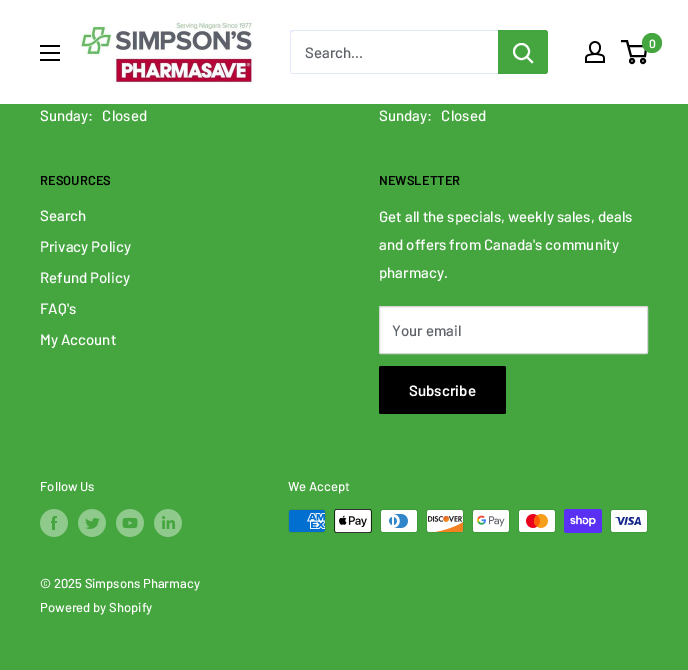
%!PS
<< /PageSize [688 670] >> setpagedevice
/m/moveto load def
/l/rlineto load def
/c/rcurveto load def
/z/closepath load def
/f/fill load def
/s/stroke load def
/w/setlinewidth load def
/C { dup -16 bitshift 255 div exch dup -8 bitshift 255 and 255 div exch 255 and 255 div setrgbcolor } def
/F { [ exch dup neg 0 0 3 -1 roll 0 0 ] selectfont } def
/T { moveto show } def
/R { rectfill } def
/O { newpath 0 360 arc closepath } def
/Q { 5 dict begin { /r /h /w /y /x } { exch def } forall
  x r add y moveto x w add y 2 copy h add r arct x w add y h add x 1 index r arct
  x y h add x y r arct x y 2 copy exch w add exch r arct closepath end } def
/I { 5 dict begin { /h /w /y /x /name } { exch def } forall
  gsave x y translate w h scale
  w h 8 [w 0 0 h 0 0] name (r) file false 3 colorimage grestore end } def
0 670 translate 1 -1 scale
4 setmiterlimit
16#45A63F C
0 0 688 670 R
16#FFFFFF C
0 0 688 104 R
(1.rgb) 80 20 175 64 I
(2.rgb) 585 41 20 22 I
16#000000 C
2 w
632 61 2 O s
643 61 2 O s
628.5 46 m 18 0 l -1.5 10 l -14 0 l -4 -15 l -6 0 l s
16#45A63F C
652 43 10 O f
/Barlow-SemiBold 12 F
16#FFFFFF C
(0) 649 48 T
(3.rgb) 40 45 20 16 I
16#E3E7FA C
291 73 m 0 1 1 1 2 1 c 252 0 l 2 0 3 -1 3 -3 c 0 -38 l 0 -1 0 -2 -1 -2 c 0 33 l 0 2 2 9 -3 9 c z f
294 31 m 253 0 l 0 -1 -1 -1 -2 -1 c -252 0 l -2 0 -3 1 -3 3 c 0 38 l 0 1 0 2 1 2 c 0 -33 l 0 -2 -2 -9 3 -9 c z f
/Barlow-Medium 15 F
16#5D6268 C
(Search...) 305 58 T
16#45A63F C
498 30 m 47 0 l 1.5 0 3 1.5 3 3 c 0 38 l 0 1.5 -1.5 3 -3 3 c -47 0 l z f
16#FFFFFF C
2 setlinecap
532 62 m -5 -5 l s
0 setlinecap
521.5 51.5 7.5 O s
(Sunday:   Closed) 40 121 T
(Sunday:   Closed) 379 121 T
/Barlow-SemiBold 13 F
16#000000 C
(RESOURCES) 40 185 T
/Barlow-Medium 15 F
16#FFFFFF C
(Search) 40 221 T
(Privacy Policy) 40 252 T
(Refund Policy) 40 283 T
(FAQ's) 40 314 T
(My Account) 40 345 T
/Barlow-SemiBold 13 F
16#000000 C
(NEWSLETTER) 379 185 T
/Barlow-Medium 15 F
16#FFFFFF C
(Get all the specials, weekly sales, deals) 379 222 T
(and offers from Canada's community) 379 250 T
(pharmacy.) 379 278 T
379 306 269 48 2 Q f
16#F8F8F8 C
381 308 m 265 0 l 1 0 1 0 1 1 c 0 -2 l -266 0 l -1 0 -1 1 -1 2 c 0 -1 0 -1 1 -1 c z f
16#D4D6D8 C
1 w
379.5 306.5 268 47 1.5 Q s
16#5D6268 C
(Your email) 392 336 T
16#000000 C
379 366 127 48 2 Q f
/Barlow-SemiBold 15 F
16#FFFFFF C
(Subscribe) 409 396 T
/Barlow-Medium 13 F
(Follow Us) 40 491 T
(4.rgb) 40 509 28 28 I
(5.rgb) 78 509 28 28 I
(6.rgb) 116 509 28 28 I
(7.rgb) 154 509 28 28 I
(We Accept) 288 491 T
(8.rgb) 288 509 38 24 I
(9.rgb) 334 509 38 24 I
(10.rgb) 380 509 38 24 I
(11.rgb) 426 509 38 24 I
(12.rgb) 472 509 38 24 I
(13.rgb) 518 509 38 24 I
(14.rgb) 564 509 38 24 I
(15.rgb) 610 509 38 24 I
(© 2025 Simpsons Pharmacy) 40 588 T
(Powered by Shopify) 40 612 T
showpage
